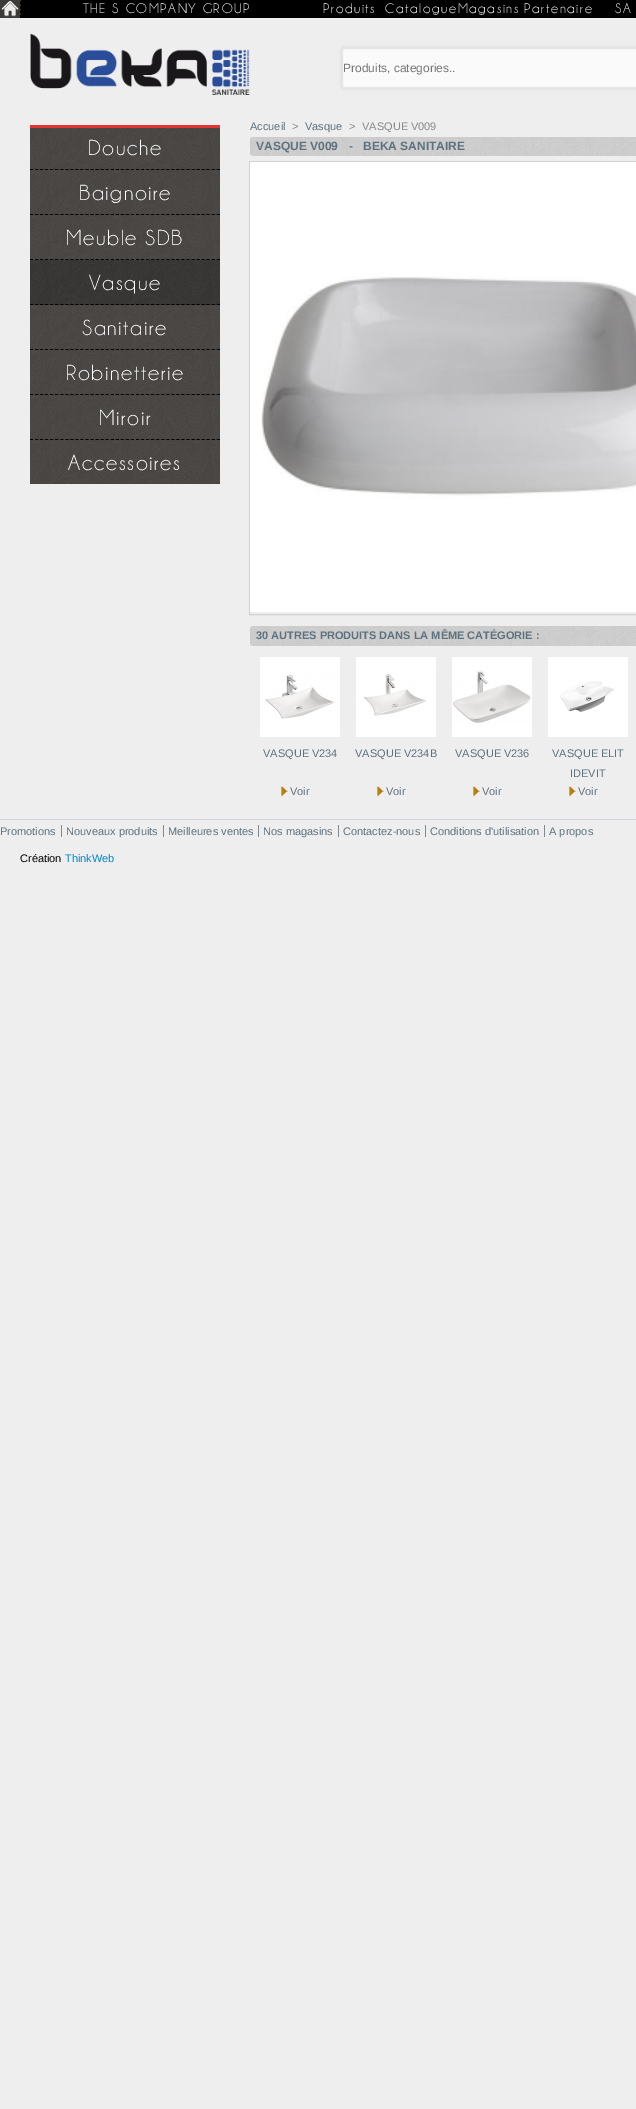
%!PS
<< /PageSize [636 2109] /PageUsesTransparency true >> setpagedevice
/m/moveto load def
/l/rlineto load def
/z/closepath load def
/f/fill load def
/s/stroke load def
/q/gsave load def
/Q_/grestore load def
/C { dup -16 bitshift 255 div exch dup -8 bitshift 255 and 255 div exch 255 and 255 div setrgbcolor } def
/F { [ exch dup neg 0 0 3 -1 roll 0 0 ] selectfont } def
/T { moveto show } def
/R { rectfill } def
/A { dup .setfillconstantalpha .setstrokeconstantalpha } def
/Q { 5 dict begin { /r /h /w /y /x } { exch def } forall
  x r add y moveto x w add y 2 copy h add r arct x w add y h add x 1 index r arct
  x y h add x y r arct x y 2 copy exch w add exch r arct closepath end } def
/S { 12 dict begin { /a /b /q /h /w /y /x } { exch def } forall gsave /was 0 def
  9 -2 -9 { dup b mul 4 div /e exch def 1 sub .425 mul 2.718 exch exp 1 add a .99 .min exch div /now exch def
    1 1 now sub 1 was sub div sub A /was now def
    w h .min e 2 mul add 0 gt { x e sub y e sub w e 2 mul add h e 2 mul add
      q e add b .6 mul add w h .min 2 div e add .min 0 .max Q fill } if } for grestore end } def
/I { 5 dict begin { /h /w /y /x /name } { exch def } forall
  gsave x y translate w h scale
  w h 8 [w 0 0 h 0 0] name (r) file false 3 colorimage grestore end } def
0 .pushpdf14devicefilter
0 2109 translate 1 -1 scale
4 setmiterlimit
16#EEEEEE C
0 0 636 2109 R
16#000000 C
21 0 615 18 R
16#3E3A37 C
0 0 21 18 R
16#000000 C
[3 1.5] 0 setdash
20.5 -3 m 0 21 l s
(1.rgb) 1 1 18 16 I
/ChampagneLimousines-Regular 14 F
16#FFFFFF C
83 13 m 1.6 0 (THE S COMPANY GROUP) ashow
323 13 m 1.6 0 (Produits) ashow
385 13 m 1.6 0 (CatalogueMagasins) ashow
524 13 m 1.6 0 (Partenaire) ashow
615 13 m 1.6 0 (SA) ashow
(2.rgb) 30 33 220 62 I
16#C0BEBE C
343 49 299 38 0 2 1 S
16#FAFAFA C
342.5 48.5 m 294 0 l 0 39 l -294 0 l z q f Q_
16#E6E6E6 C
[] 0 setdash
s
/LiberationSans-Regular 12 F
16#757575 C
(Produits, categories..) 343 72 T
16#E43535 C
30 125 190 3 R
16#3E3A37 C
30 128 190 132 R
(3.rgb) 30 128 190 42 I
16#000000 C
[3 2.05] 0 setdash
30 169.5 m 190 0 l s
/ChampagneLimousines-Regular 22 F
16#FFFFFF C
88 155 m 1.6 0 (Douche) ashow
(4.rgb) 30 170 190 45 I
16#000000 C
30 214.5 m 190 0 l s
16#FFFFFF C
79 200 m 1.6 0 (Baignoire) ashow
(4.rgb) 30 215 190 45 I
16#000000 C
30 259.5 m 190 0 l s
16#FFFFFF C
66 245 m 1.6 0 (Meuble SDB) ashow
16#272522 C
30 260 190 45 R
(5.rgb) 30 260 190 45 I
16#000000 C
30 304.5 m 190 0 l s
16#FFFFFF C
89 290 m 1.6 0 (Vasque) ashow
16#3E3A37 C
30 305 190 179 R
(4.rgb) 30 305 190 45 I
16#000000 C
30 349.5 m 190 0 l s
16#FFFFFF C
82 335 m 1.6 0 (Sanitaire) ashow
(4.rgb) 30 350 190 45 I
16#000000 C
30 394.5 m 190 0 l s
16#FFFFFF C
66 380 m 1.6 0 (Robinetterie) ashow
(4.rgb) 30 395 190 45 I
16#000000 C
30 439.5 m 190 0 l s
16#FFFFFF C
99 425 m 1.6 0 (Miroir) ashow
(6.rgb) 30 440 190 44 I
68 470 m 1.6 0 (Accessoires) ashow
/LiberationSans-Regular 11 F
16#5D717E C
(Accueil) 250 130 T
16#888888 C
(>) 292 130 T
16#5D717E C
(Vasque) 305 130 T
16#888888 C
(>) 349 130 T
(VASQUE V009) 362 130 T
(7.rgb) 250 137 386 19 I
/LiberationSans-Bold 12 F
16#5D717E C
(VASQUE V009) 256 150 T
(-) 349 150 T
(BEKA SANITAIRE) 363 150 T
16#D0D1D5 C
[] 0 setdash
249.5 161.5 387 453 rectstroke
(8.rgb) 250 162 386 450 I
(9.rgb) 250 626 386 20 I
/LiberationSans-Bold 11 F
16#5D717E C
(30 AUTRES PRODUITS DANS LA MÊME CATÉGORIE :) 256 639 T
(10.rgb) 260 657 80 80 I
/LiberationSans-Regular 11 F
(VASQUE V234) 263 757 T
(11.rgb) 281 786 7 11 I
(Voir) 290 795 T
(12.rgb) 356 657 80 80 I
(VASQUE V234B) 355 757 T
(11.rgb) 377 786 7 11 I
(Voir) 386 795 T
(13.rgb) 452 657 80 80 I
(VASQUE V236) 455 757 T
(11.rgb) 473 786 7 11 I
(Voir) 482 795 T
(14.rgb) 548 657 80 80 I
(VASQUE ELIT) 552 757 T
(IDEVIT) 570 777 T
(11.rgb) 569 786 7 11 I
(Voir) 578 795 T
16#D0D3D8 C
0 819 636 1 R
16#5D717E C
(Promotions) 0 835 T
(Nouveaux produits) 66 835 T
16#888888 C
61 825 1 12 R
16#5D717E C
(Meilleures ventes) 168 835 T
16#888888 C
163 825 1 12 R
16#5D717E C
(Nos magasins) 263 835 T
16#888888 C
258 825 1 12 R
16#5D717E C
(Contactez-nous) 343 835 T
16#888888 C
338 825 1 12 R
16#5D717E C
(Conditions d'utilisation) 430 835 T
16#888888 C
425 825 1 12 R
16#5D717E C
(A propos) 549 835 T
16#888888 C
544 825 1 12 R
16#000000 C
(Création) 20 862 T
16#0085CA C
(ThinkWeb) 65 862 T
.poppdf14devicefilter showpage
